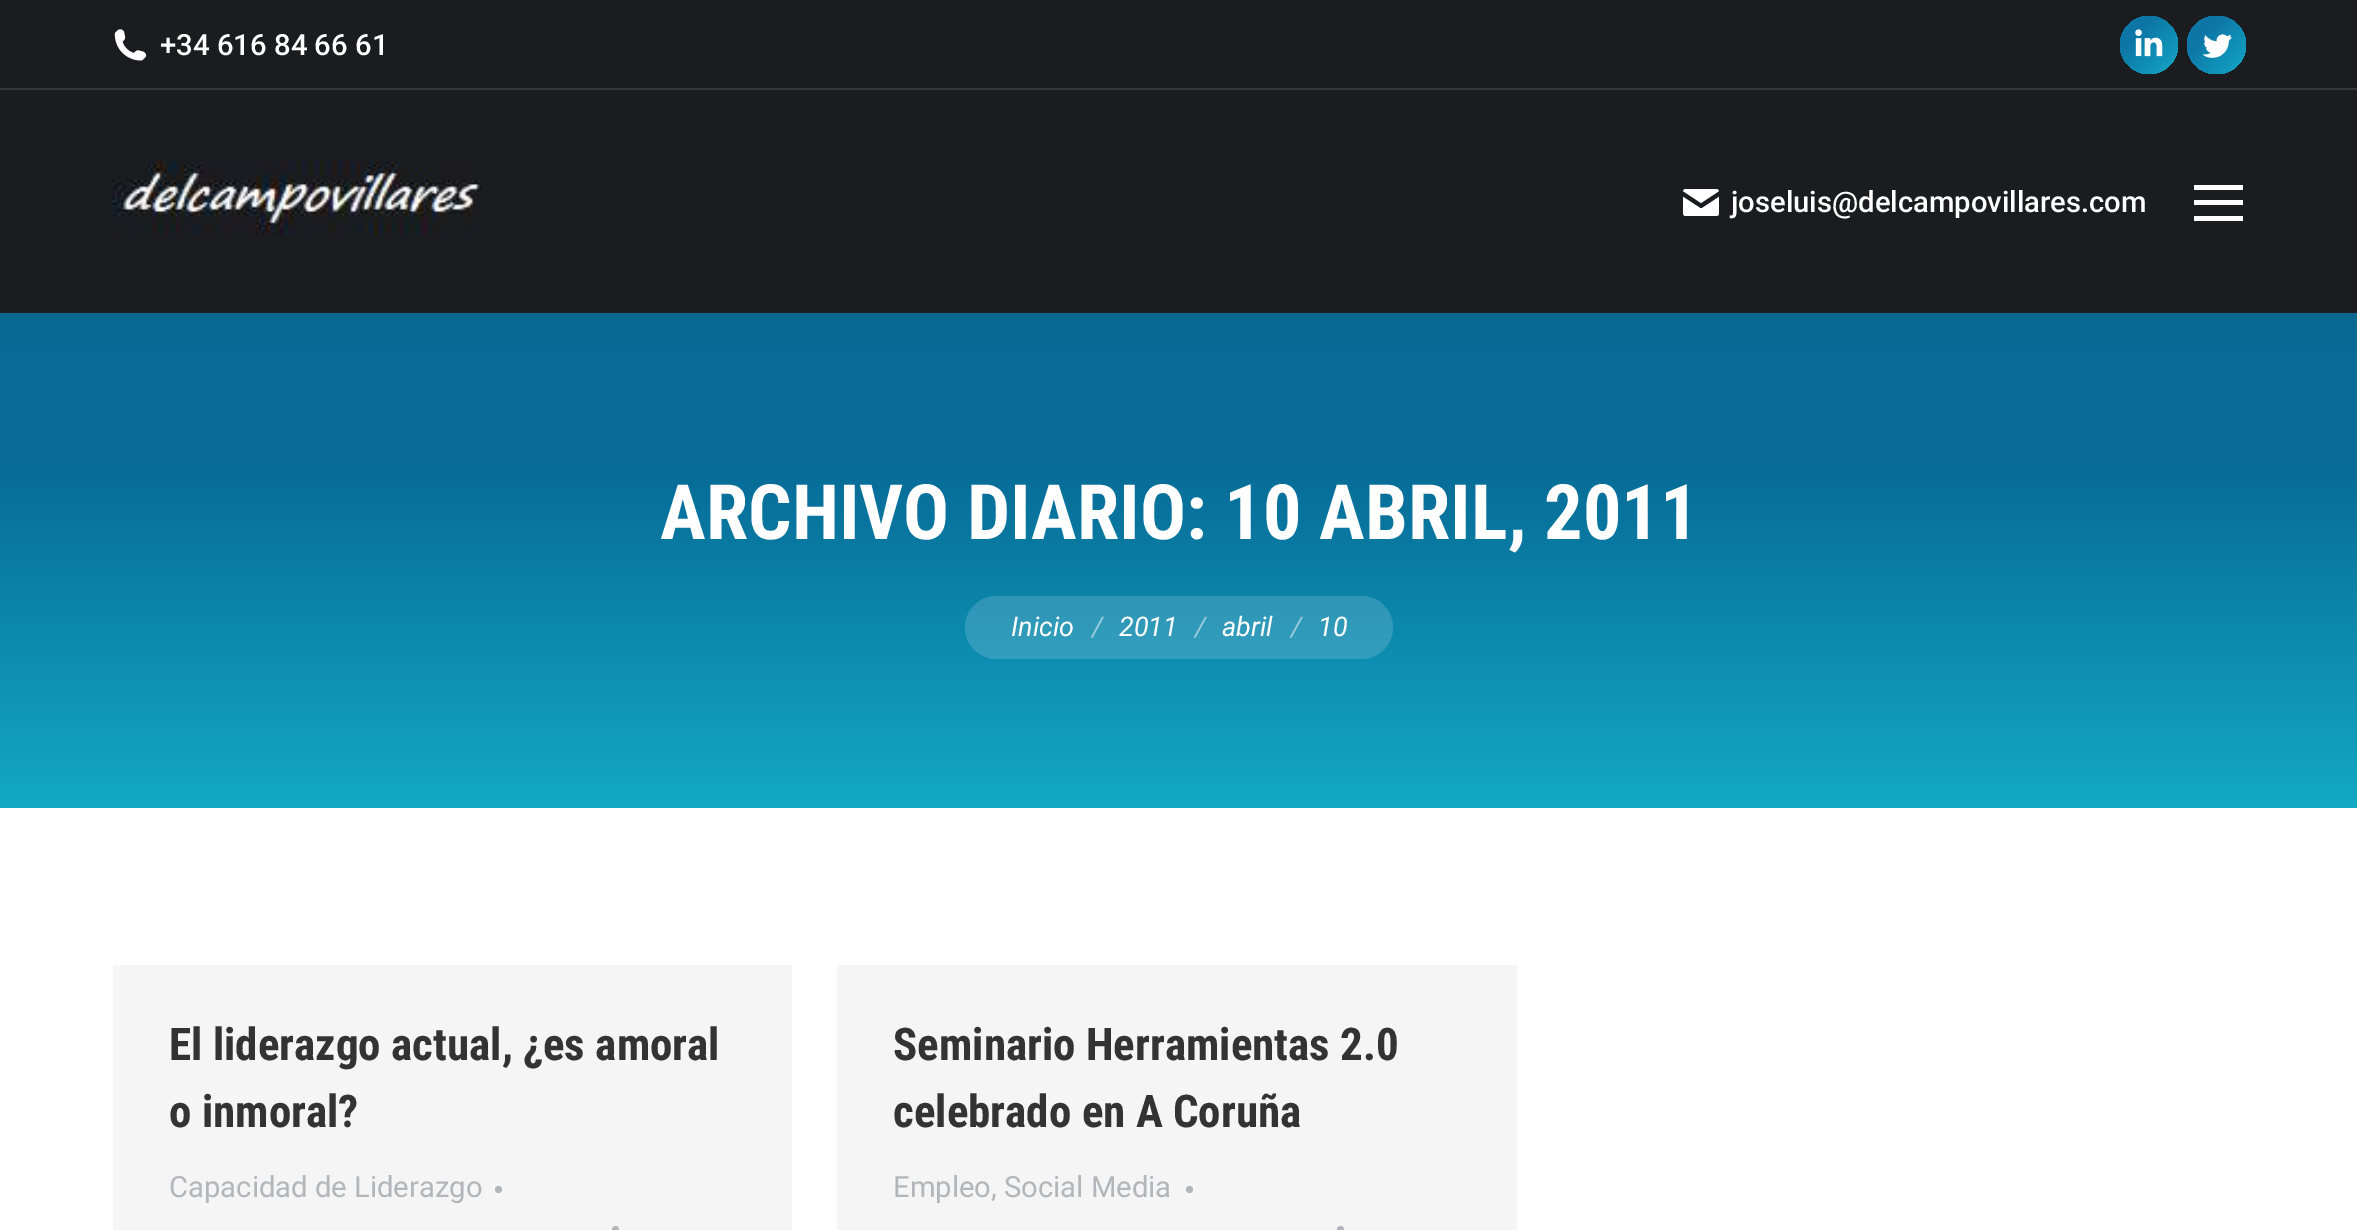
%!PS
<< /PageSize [2357 1230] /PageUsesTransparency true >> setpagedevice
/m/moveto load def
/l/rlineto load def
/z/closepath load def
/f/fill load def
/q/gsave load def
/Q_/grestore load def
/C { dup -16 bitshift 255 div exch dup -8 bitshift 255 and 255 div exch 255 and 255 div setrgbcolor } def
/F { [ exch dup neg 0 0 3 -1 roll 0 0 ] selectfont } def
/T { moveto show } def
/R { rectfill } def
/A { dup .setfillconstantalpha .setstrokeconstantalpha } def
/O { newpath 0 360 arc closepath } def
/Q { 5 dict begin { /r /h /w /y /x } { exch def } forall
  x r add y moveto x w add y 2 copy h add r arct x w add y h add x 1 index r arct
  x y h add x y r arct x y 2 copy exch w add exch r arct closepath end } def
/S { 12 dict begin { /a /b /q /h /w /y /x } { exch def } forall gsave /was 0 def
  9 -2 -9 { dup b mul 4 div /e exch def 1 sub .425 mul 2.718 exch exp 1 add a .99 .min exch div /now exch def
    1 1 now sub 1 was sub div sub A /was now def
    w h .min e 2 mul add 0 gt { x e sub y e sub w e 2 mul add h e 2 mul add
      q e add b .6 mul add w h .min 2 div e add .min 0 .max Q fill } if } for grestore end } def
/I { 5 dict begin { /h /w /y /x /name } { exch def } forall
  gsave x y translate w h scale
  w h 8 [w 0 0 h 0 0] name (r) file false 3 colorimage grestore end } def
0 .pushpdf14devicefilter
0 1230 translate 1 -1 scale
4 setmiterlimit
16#FFFFFF C
0 0 2357 1230 R
q 0 313 m 2357 0 l 0 495 l -2357 0 l z clip newpath
<< /ShadingType 2 /ColorSpace /DeviceRGB /Coords [1179 313 1179 808] /Extend [true true] /Function << /FunctionType 3 /Domain [0 1] /Functions [<< /FunctionType 2 /Domain [0 1] /C0 [.027 .416 .592] /C1 [.027 .416 .592] /N 1 >> << /FunctionType 2 /Domain [0 1] /C0 [.027 .416 .592] /C1 [.075 .659 .776] /N 1 >>] /Bounds [.3] /Encode [0 1 0 1] >> >> shfill Q_
16#000000 C
-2 -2 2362 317 0 17 .07 S
16#1A1C20 C
0 0 2357 313 R
(1.rgb) 114 29 33 32 I
/Roboto-Medium 29.25 F
16#FFFFFF C
(+34 616 84 66 61) 160 55 T
q 2149 45 29 O clip newpath
<< /ShadingType 2 /ColorSpace /DeviceRGB /Coords [2120 16 2178 74] /Extend [true true] /Function << /FunctionType 3 /Domain [0 1] /Functions [<< /FunctionType 2 /Domain [0 1] /C0 [.051 .463 .651] /C1 [.051 .463 .651] /N 1 >> << /FunctionType 2 /Domain [0 1] /C0 [.051 .463 .651] /C1 [.075 .659 .776] /N 1 >>] /Bounds [.3] /Encode [0 1 0 1] >> >> shfill Q_
(2.rgb) 2135 29 28 28 I
q 2187 16 59 58 29 Q clip newpath
<< /ShadingType 2 /ColorSpace /DeviceRGB /Coords [2187 16 2246 74] /Extend [true true] /Function << /FunctionType 3 /Domain [0 1] /Functions [<< /FunctionType 2 /Domain [0 1] /C0 [.051 .463 .651] /C1 [.051 .463 .651] /N 1 >> << /FunctionType 2 /Domain [0 1] /C0 [.051 .463 .651] /C1 [.075 .659 .776] /N 1 >>] /Bounds [.3] /Encode [0 1 0 1] >> >> shfill Q_
(3.rgb) 2203 34 29 24 I
16#35373B C
0 88 2357 2 R
(4.rgb) 112 160 370 76 I
(5.rgb) 1683 189 36 27 I
16#FFFFFF C
(joseluis@delcampovillares.com) 1731 212 T
2194 185 49 5 R
2194 200 49 5 R
2194 216 49 5 R
/RobotoCondensed-Bold 76.5 F
(ARCHIVO DIARIO: 10 ABRIL, 2011) 660 539 T
0.15 A
965 596 428 63 31.5 Q f
/Roboto-Italic 27 F
1 A
(Inicio) 1011 636 T
16#98CCDC C
(/) 1092 636 T
16#FFFFFF C
(2011) 1119 636 T
16#98CCDC C
(/) 1195 636 T
16#FFFFFF C
(abril) 1222 636 T
16#98CCDC C
(/) 1291 636 T
16#FFFFFF C
(10) 1318 636 T
16#F5F5F5 C
113 965 679 265 R
/RobotoCondensed-Bold 45 F
16#333333 C
(El liderazgo actual, ¿es amoral) 169 1060 T
(o inmoral?) 169 1127 T
/Roboto-Regular 29.25 F
16#B4B5BB C
(Capacidad de Liderazgo) 169 1197 T
498.5 1189.5 3.5 O f
615.5 1229.5 3.5 O f
16#F5F5F5 C
837 965 680 265 R
/RobotoCondensed-Bold 45 F
16#333333 C
(Seminario Herramientas 2.0) 893 1060 T
(celebrado en A Coruña) 893 1127 T
/Roboto-Regular 29.25 F
16#B4B5BB C
(Empleo, Social Media) 893 1197 T
1189.5 1189.5 3.5 O f
1340.5 1229.5 3.5 O f
.poppdf14devicefilter showpage
